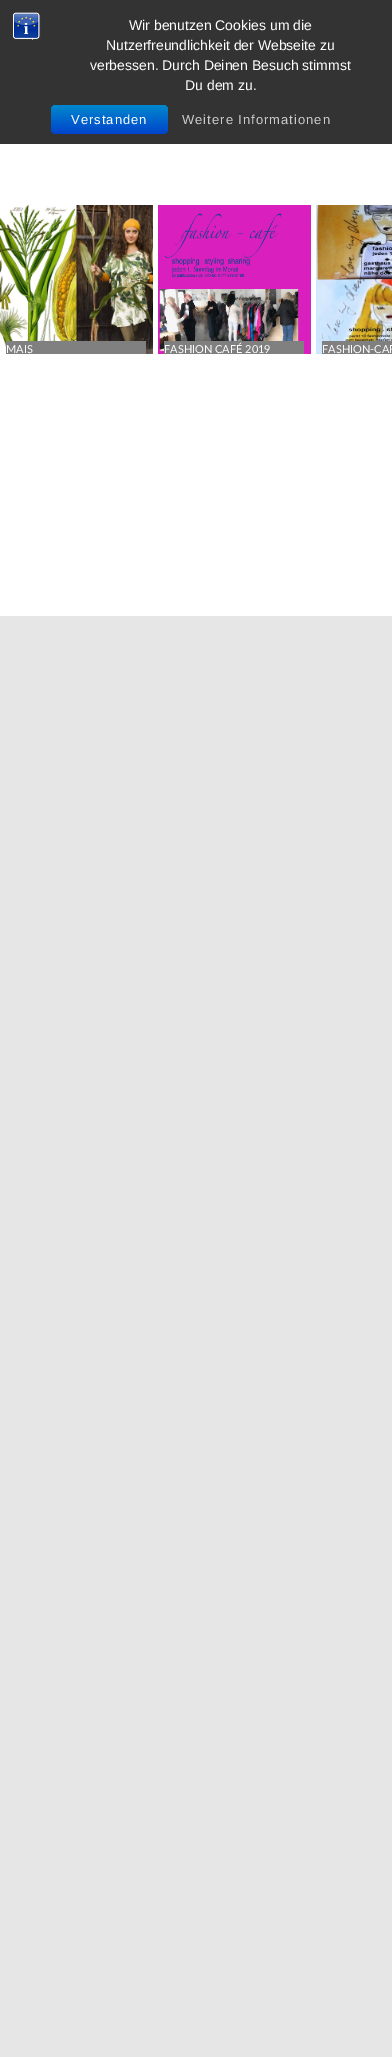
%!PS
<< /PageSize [392 2057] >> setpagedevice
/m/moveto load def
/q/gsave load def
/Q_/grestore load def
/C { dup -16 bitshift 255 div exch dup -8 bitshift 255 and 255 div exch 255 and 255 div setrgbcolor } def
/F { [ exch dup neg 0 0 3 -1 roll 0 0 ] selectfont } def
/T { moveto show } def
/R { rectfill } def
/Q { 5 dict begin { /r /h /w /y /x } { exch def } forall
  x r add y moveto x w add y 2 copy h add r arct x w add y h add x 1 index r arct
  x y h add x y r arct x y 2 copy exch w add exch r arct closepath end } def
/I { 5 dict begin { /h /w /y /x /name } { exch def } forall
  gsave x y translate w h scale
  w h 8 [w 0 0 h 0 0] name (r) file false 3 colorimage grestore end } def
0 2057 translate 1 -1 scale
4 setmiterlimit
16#E6E6E6 C
0 0 392 2057 R
16#333333 C
0 0 392 144 R
(1.rgb) 13 12 28 28 I
/LiberationSans-Regular 14 F
16#FFFFFF C
(Wir benutzen Cookies um die) 129 30 T
(Nutzerfreundlichkeit der Webseite zu) 106 50 T
(verbessen. Durch Deinen Besuch stimmst) 90 70 T
(Du dem zu.) 185 90 T
q 51 105 117 29 5 Q clip newpath
<< /ShadingType 2 /ColorSpace /DeviceRGB /Coords [110 105 110 134] /Extend [true true] /Function << /FunctionType 2 /Domain [0 1] /C0 [0 .533 .8] /C1 [0 .267 .8] /N 1 >> >> shfill Q_
/LiberationSans-Regular 13 F
71 124 m 1 0 (Verstanden) ashow
16#CCCCCC C
182 124 m 1 0 (Weitere Informationen) ashow
16#FFFFFF C
0 144 392 472 R
(2.rgb) 0 205 153 149 I
16#808080 C
6 341 140 13 R
/Lato-Regular 11 F
16#FFFFFF C
(MAIS) 6 353 T
(3.rgb) 158 205 153 149 I
16#808080 C
164 341 140 13 R
16#FFFFFF C
(FASHION CAFÉ 2019) 164 353 T
(4.rgb) 316 205 76 149 I
16#808080 C
322 341 70 13 R
16#FFFFFF C
(FASHION-CAF) 322 353 T
showpage
